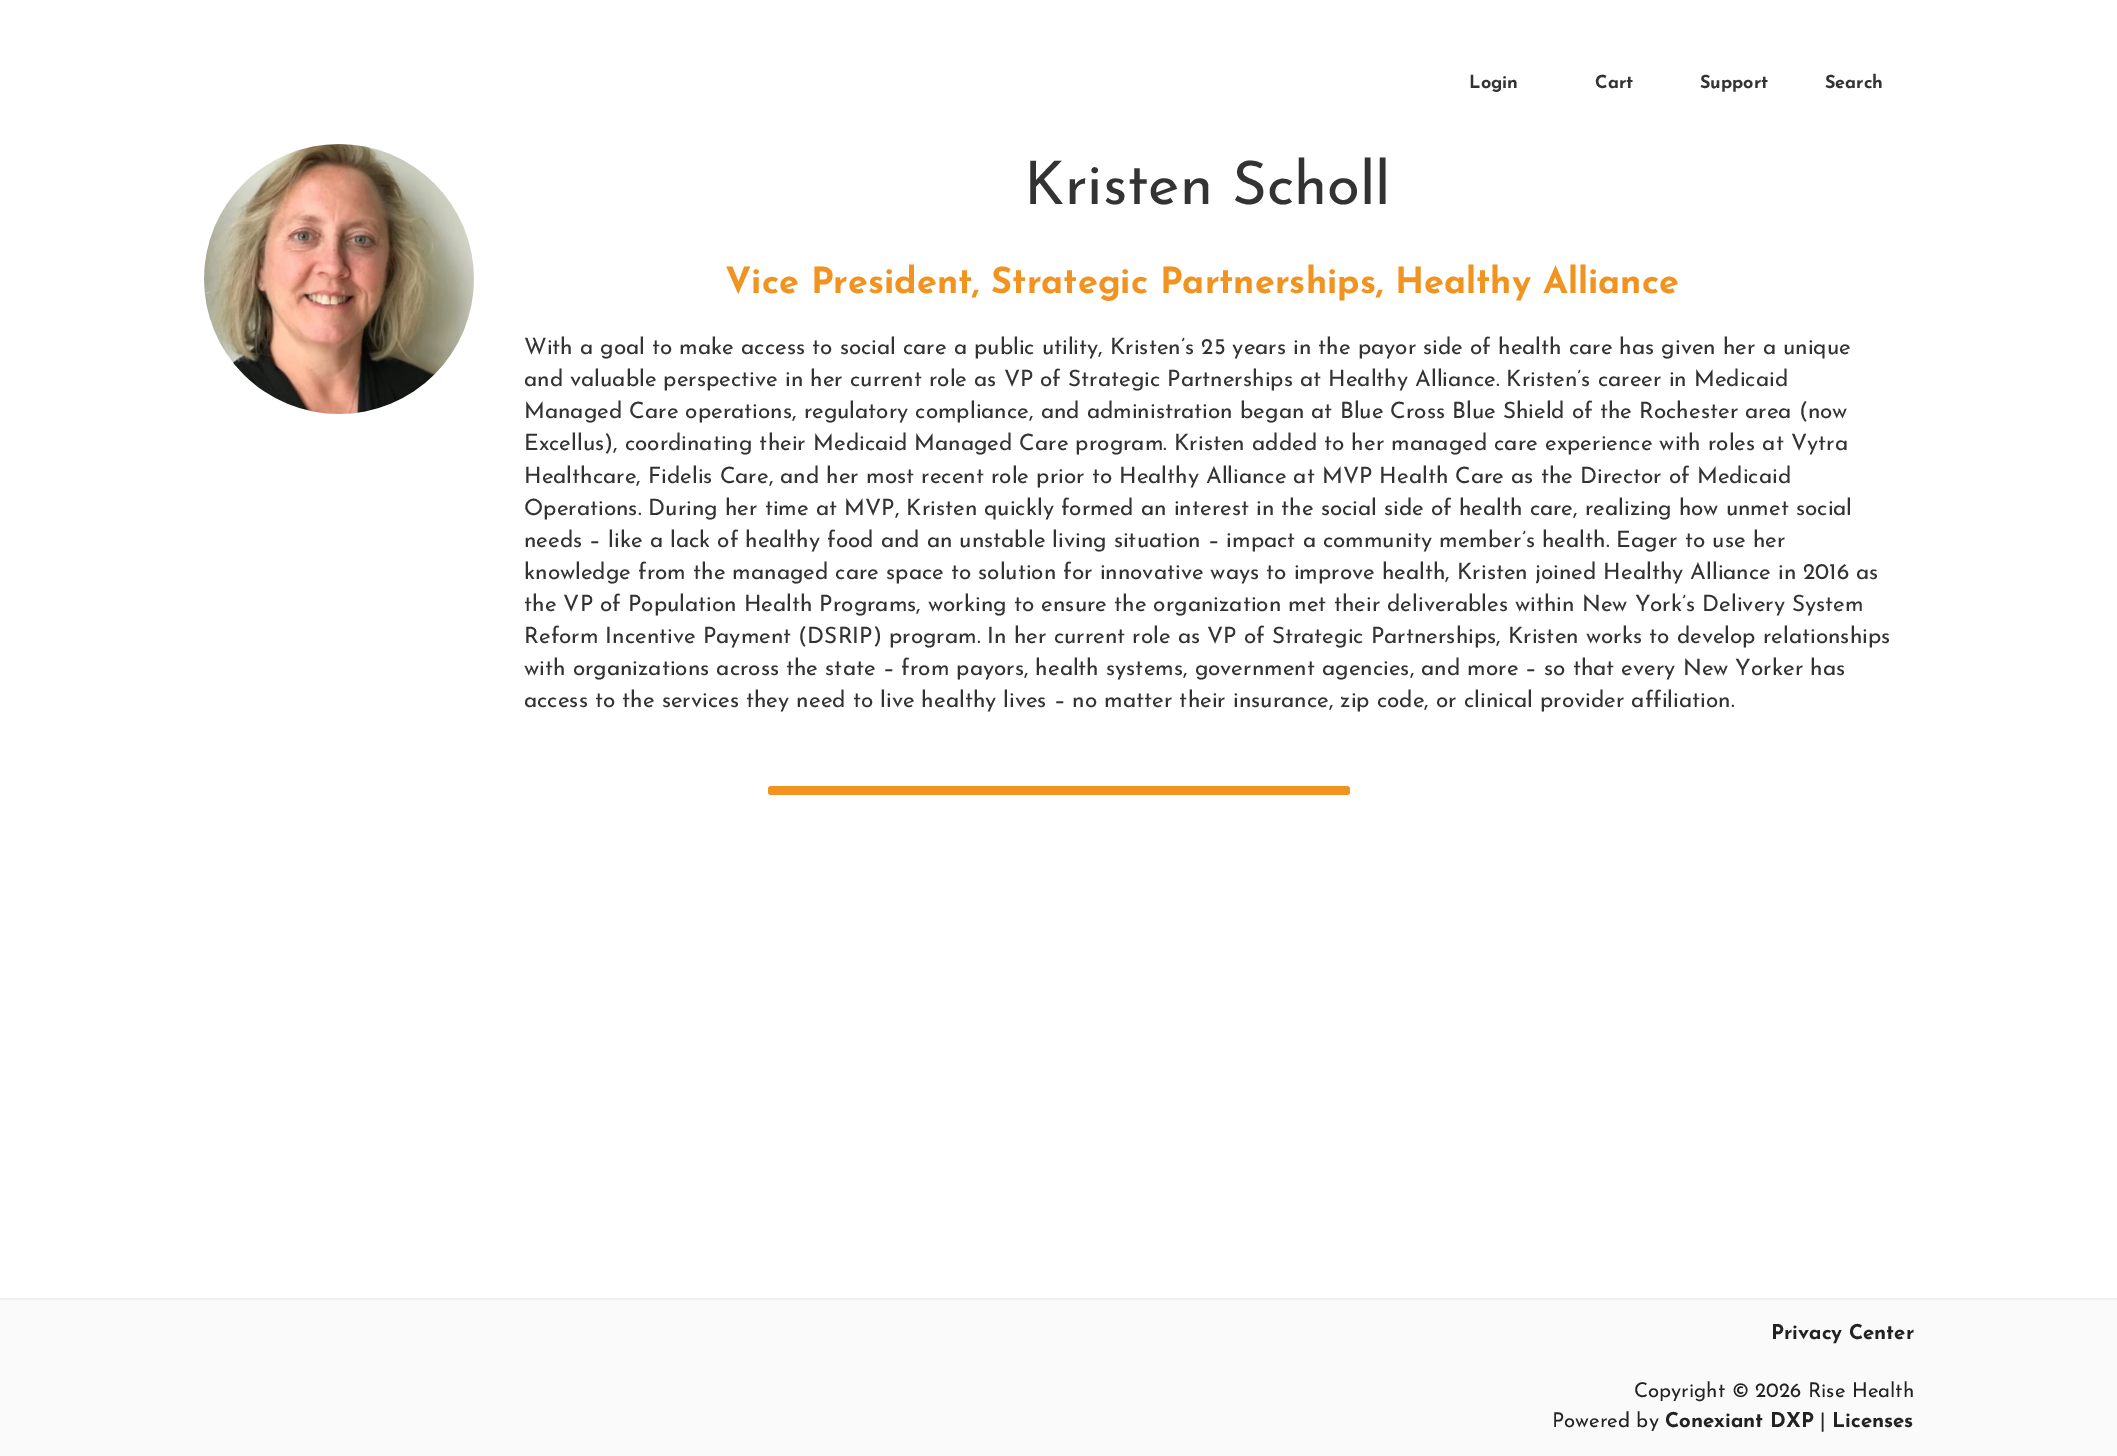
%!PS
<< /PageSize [2117 1456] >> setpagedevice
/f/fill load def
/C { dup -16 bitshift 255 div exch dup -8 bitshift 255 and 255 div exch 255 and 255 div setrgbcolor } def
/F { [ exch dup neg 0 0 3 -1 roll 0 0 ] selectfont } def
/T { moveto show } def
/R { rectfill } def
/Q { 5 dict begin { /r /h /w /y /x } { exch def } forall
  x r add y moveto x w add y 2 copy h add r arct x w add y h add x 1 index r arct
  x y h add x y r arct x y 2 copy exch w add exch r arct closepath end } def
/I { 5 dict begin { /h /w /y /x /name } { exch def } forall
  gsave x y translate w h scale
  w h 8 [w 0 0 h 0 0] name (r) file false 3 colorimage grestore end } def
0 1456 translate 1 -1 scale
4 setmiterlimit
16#FFFFFF C
0 0 2117 1456 R
/JosefinSans-Bold 18 F
16#333333 C
(Login) 1469 88 T
(Cart) 1595 88 T
(Support) 1700 88 T
(Search) 1825 88 T
(1.rgb) 204 144 270 270 I
/JosefinSans-Regular 60 F
(Kristen Scholl) 1024 204 T
/JosefinSans-Bold 36 F
16#F19320 C
(Vice President, Strategic Partnerships, Healthy Alliance) 725 293 T
/JosefinSans-Regular 22.5 F
16#333333 C
(With a goal to make access to social care a public utility, Kristen’s 25 years in the payor side of health care has given her a unique) 524 354 T
(and valuable perspective in her current role as VP of Strategic Partnerships at Healthy Alliance. Kristen’s career in Medicaid) 524 386 T
(Managed Care operations, regulatory compliance, and administration began at Blue Cross Blue Shield of the Rochester area \(now) 524 418 T
(Excellus\), coordinating their Medicaid Managed Care program. Kristen added to her managed care experience with roles at Vytra) 524 450 T
(Healthcare, Fidelis Care, and her most recent role prior to Healthy Alliance at MVP Health Care as the Director of Medicaid) 524 483 T
(Operations. During her time at MVP, Kristen quickly formed an interest in the social side of health care, realizing how unmet social) 524 515 T
(needs – like a lack of healthy food and an unstable living situation – impact a community member’s health. Eager to use her) 524 547 T
(knowledge from the managed care space to solution for innovative ways to improve health, Kristen joined Healthy Alliance in 2016 as) 524 579 T
(the VP of Population Health Programs, working to ensure the organization met their deliverables within New York’s Delivery System) 524 611 T
(Reform Incentive Payment \(DSRIP\) program. In her current role as VP of Strategic Partnerships, Kristen works to develop relationships) 524 643 T
(with organizations across the state – from payors, health systems, government agencies, and more – so that every New Yorker has) 524 675 T
(access to the services they need to live healthy lives – no matter their insurance, zip code, or clinical provider affiliation.) 524 707 T
16#F19320 C
768 786 582 9 3 Q f
16#FAFAFA C
0 1300 2117 156 R
16#EEEEEE C
0 1298 2117 2 R
/JosefinSans-Bold 20.4 F
16#222222 C
(Privacy Center) 1771 1339 T
/JosefinSans-Regular 20.4 F
(Copyright © 2026 Rise Health) 1634 1397 T
(Powered by) 1552 1427 T
/JosefinSans-Bold 20.4 F
(Conexiant DXP) 1665 1427 T
/JosefinSans-Regular 20.4 F
(|) 1820 1427 T
/JosefinSans-Bold 20.4 F
(Licenses) 1832 1427 T
showpage
